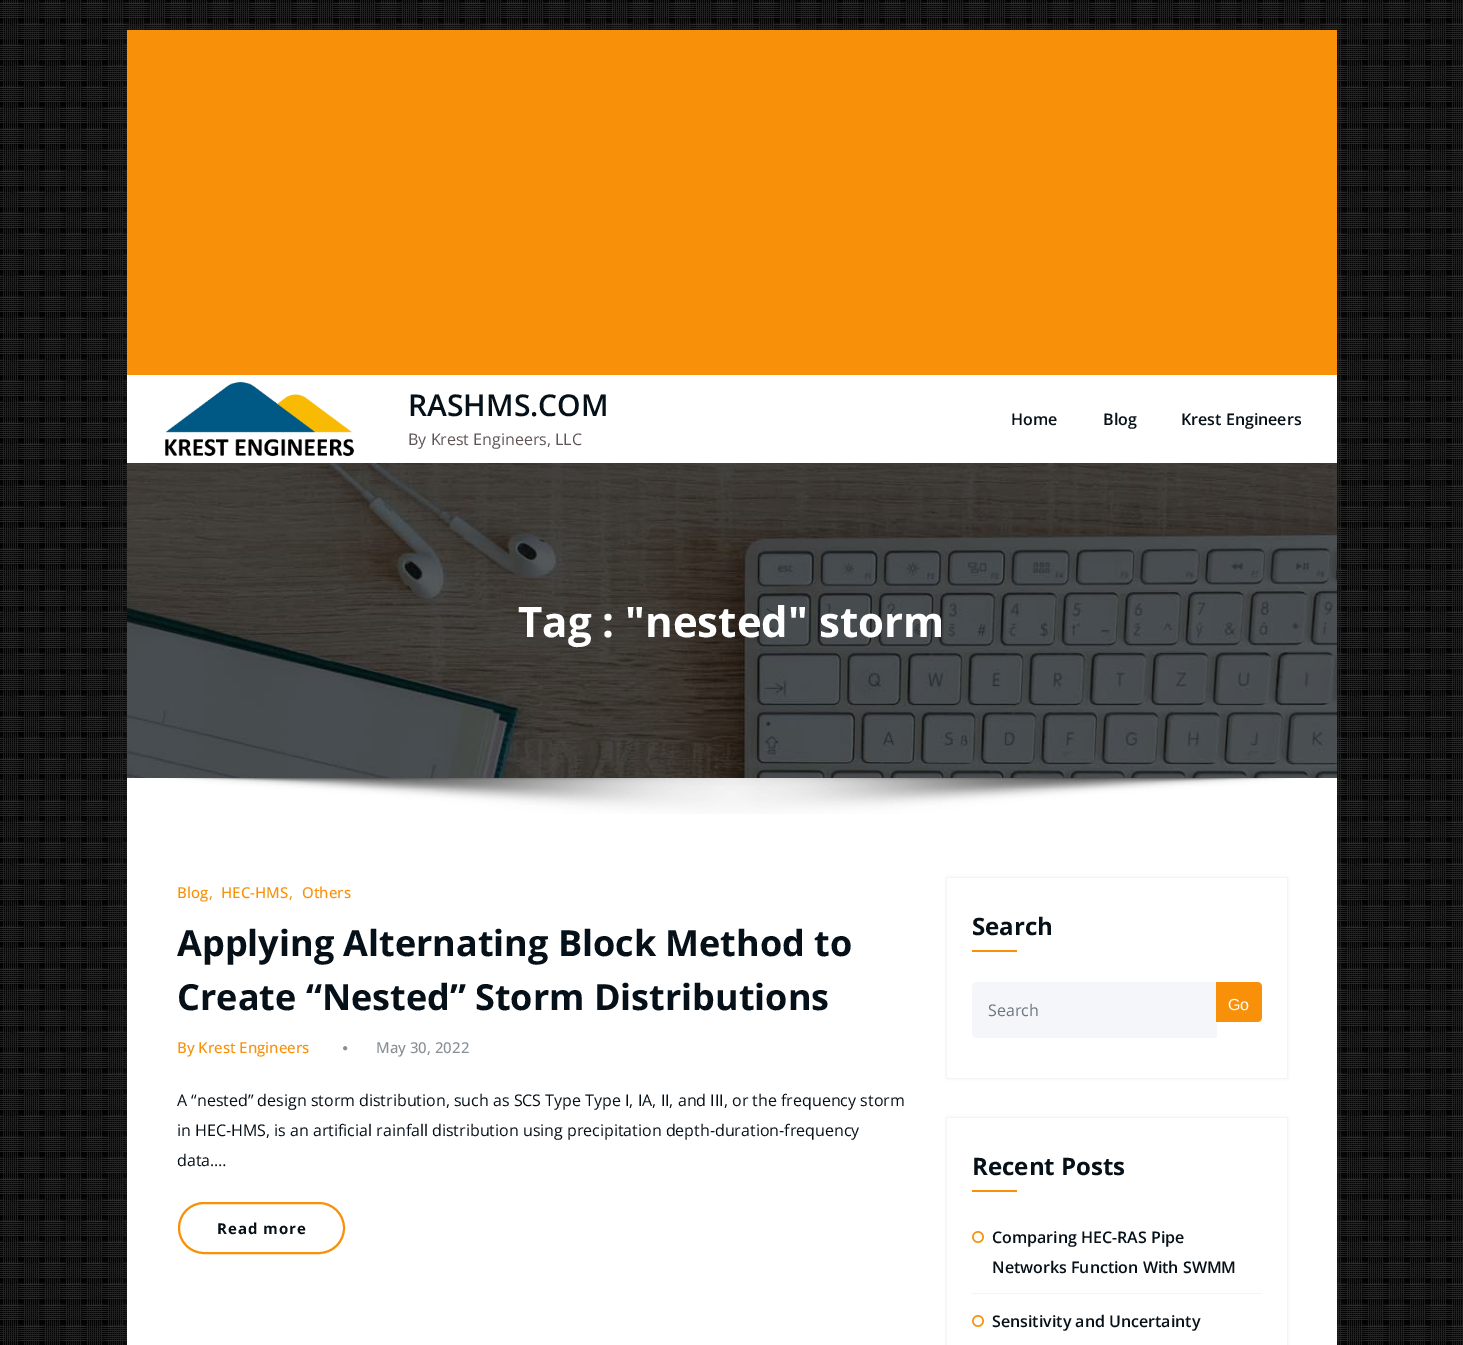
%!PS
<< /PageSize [1463 1345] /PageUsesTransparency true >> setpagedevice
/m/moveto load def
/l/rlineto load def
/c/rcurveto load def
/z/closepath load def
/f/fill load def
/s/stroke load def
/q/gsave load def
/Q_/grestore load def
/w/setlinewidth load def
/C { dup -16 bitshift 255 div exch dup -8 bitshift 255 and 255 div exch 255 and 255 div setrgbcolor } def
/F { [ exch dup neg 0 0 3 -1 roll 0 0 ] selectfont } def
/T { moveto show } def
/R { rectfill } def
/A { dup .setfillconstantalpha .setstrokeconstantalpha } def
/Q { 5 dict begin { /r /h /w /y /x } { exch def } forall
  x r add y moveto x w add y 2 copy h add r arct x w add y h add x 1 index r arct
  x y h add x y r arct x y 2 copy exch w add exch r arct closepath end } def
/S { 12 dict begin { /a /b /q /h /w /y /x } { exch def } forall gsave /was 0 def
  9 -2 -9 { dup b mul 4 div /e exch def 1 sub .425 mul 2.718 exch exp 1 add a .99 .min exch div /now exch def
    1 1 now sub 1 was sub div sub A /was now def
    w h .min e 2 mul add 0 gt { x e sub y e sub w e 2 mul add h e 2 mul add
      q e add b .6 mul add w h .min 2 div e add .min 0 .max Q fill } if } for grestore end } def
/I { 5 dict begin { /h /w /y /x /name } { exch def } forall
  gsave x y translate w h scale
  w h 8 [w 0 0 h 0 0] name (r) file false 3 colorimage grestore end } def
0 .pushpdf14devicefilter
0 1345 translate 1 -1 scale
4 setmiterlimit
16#FFFFFF C
0 0 1463 1345 R
(1.rgb) 0 0 1463 1345 I
16#303030 C
127 30 1210 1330 0 5 .5 S
16#F89109 C
127 30 1210 345 R
16#FFFFFF C
127 375 1210 88 R
(2.rgb) 165 381 190 76 I
/OpenSans-SemiBold 30 F
16#061018 C
(RASHMS.COM) 408 416 T
/OpenSans-Regular 16 F
16#5F5555 C
(By Krest Engineers, LLC) 408 445 T
/OpenSans-SemiBold 16 F
16#061018 C
(Home) 1011 425 T
(Blog) 1103 425 T
(Krest Engineers) 1181 425 T
(3.rgb) 127 463 1210 315 I
/OpenSans-Bold 42 F
16#FFFFFF C
(Tag : "nested" storm) 518 637 T
127 778 1210 567 R
(4.rgb) 168 778 1127 36 I
/OpenSans-Medium 15 F
16#F89109 C
(Blog) 177 898 T
(,) 209 898 T
(HEC-HMS) 221 898 T
(,) 289 898 T
(Others) 302 898 T
/OpenSans-Bold 36 F
16#061018 C
(Applying Alternating Block Method to) 177 956 T
(Create “Nested” Storm Distributions) 177 1010 T
/OpenSans-Medium 15 F
16#F89109 C
(By Krest Engineers) 177 1053 T
(5.rgb) 343 1046 5 5 I
16#878E94 C
(May 30, 2022) 376 1053 T
/OpenSans-Regular 16 F
16#061018 C
(A “nested” design storm distribution, such as SCS Type Type I, IA, II, and III, or the frequency storm) 177 1106 T
(in HEC-HMS, is an artificial rainfall distribution using precipitation depth-duration-frequency) 177 1136 T
(data.…) 177 1166 T
16#F89109 C
2 w
179 1203 165 50 25 Q s
/OpenSans-Bold 15 F
16#061018 C
217 1234 m 1 0 (Read more) ashow
q
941 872 m 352 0 l 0 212 l -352 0 l z 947 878 m 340 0 l 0 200 l -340 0 l z eoclip newpath
16#000000 C
947 878 340 200 0 1.5 .11 S
Q_
/OpenSans-Bold 24 F
(Search) 972 935 T
16#F89109 C
972 950 45 2 R
16#F5F6FA C
977 982 m 240 0 l 0 56 l -240 0 l -3 0 -5 -2 -5 -5 c 0 -46 l 0 -3 2 -5 5 -5 c z f
/OpenSans-Regular 16 F
16#6C757D C
(Search) 988 1016 T
16#F89109 C
1216 982 m 41 0 l 3 0 5 2 5 5 c 0 30 l 0 3 -2 5 -5 5 c -41 0 l z f
/LiberationSans-Regular 16 F
16#FFFFFF C
(Go) 1228 1010 T
q
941 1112 m 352 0 l 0 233 l -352 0 l z 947 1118 m 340 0 l 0 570 l -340 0 l z eoclip newpath
16#000000 C
947 1118 340 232 0 1.5 .11 S
Q_
/OpenSans-Bold 24 F
16#061018 C
(Recent Posts) 972 1175 T
16#F89109 C
972 1190 45 2 R
16#F4F4F4 C
972 1293 290 1 R
(6.rgb) 972 1231 12 12 I
/OpenSans-SemiBold 16 F
16#061018 C
(Comparing HEC-RAS Pipe) 992 1243 T
(Networks Function With SWMM) 992 1273 T
(6.rgb) 972 1315 12 12 I
(Sensitivity and Uncertainty) 992 1327 T
.poppdf14devicefilter showpage
